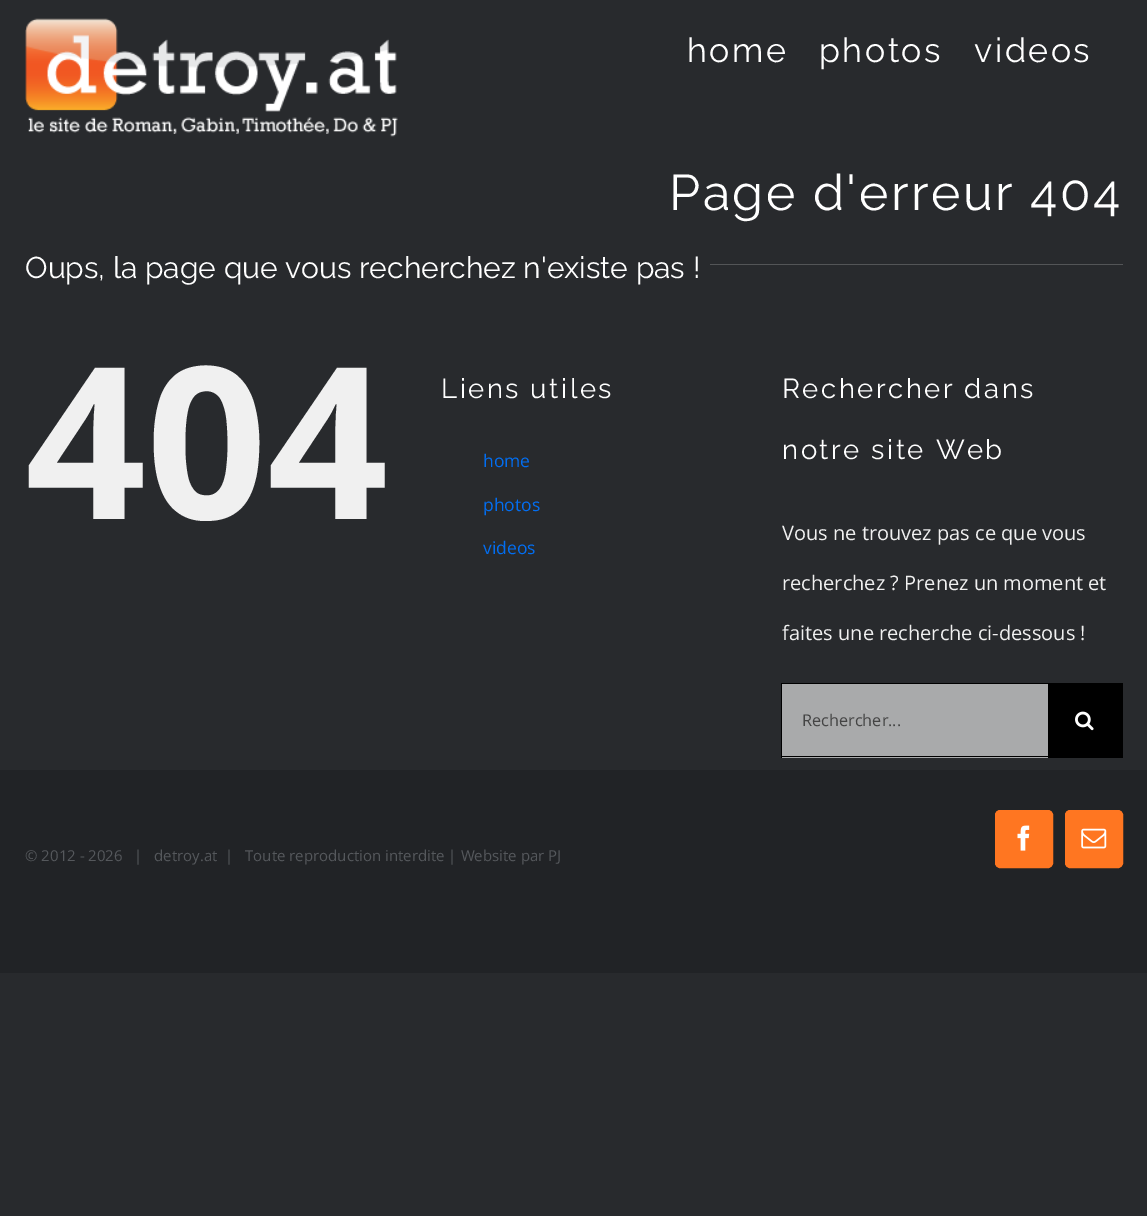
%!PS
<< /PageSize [1147 1216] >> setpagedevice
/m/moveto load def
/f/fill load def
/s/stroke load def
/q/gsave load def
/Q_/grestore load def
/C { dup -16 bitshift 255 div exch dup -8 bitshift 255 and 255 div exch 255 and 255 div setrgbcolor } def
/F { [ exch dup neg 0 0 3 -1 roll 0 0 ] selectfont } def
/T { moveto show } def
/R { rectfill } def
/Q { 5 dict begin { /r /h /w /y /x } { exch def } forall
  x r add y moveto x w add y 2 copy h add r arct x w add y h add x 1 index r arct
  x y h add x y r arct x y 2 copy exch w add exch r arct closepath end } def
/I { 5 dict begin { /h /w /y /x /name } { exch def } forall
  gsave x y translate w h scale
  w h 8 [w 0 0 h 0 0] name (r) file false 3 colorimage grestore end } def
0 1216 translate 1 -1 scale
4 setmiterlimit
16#282A2D C
0 0 1147 1216 R
(1.rgb) 25 18 373 119 I
/Raleway-Regular 34 F
16#FFFFFF C
687 62 m 2.5 0 (home) ashow
819 62 m 2.5 0 (photos) ashow
974 62 m 2.5 0 (videos) ashow
/Raleway-Regular 50 F
669 210 m 2.5 0 (Page d'erreur 404) ashow
/Raleway-Regular 30 F
(Oups, la page que vous recherchez n'existe pas !) 25 278 T
16#535557 C
710 264 413 1 R
/OpenSans-Bold 212 F
16#F0F0F0 C
(404) 25 519 T
/Raleway-Regular 27.5 F
16#FFFFFF C
441 398 m 2.5 0 (Liens utiles) ashow
/OpenSans-Regular 17.5 F
16#026EF2 C
(home) 483 467 T
(photos) 483 511 T
(videos) 483 554 T
/Raleway-Regular 27.5 F
16#FFFFFF C
782 398 m 2.5 0 (Rechercher dans) ashow
782 459 m 2.5 0 (notre site Web) ashow
/OpenSans-Regular 20 F
16#F0F0F0 C
(Vous ne trouvez pas ce que vous) 782 540 T
(recherchez ? Prenez un moment et) 782 590 T
(faites une recherche ci-dessous !) 782 640 T
16#A9AAAB C
782 684 266 74 R
16#000000 C
781 683 267 1 R
781 756 267 1 R
781 683 1 75 R
/OpenSans-Regular 16.25 F
16#444444 C
(Rechercher...) 802 726 T
16#000000 C
1048 683 75 75 R
(2.rgb) 1075 711 19 20 I
16#212326 C
0 770 1147 203 R
/OpenSans-Regular 15 F
16#55585C C
(© 2012 - 2026   |   detroy.at  |   Toute reproduction interdite | Website par PJ) 25 861 T
16#FF7621 C
995.5 810.5 57 57 4.5 Q q f Q_
s
(3.rgb) 1017 825 13 26 I
1065.5 810.5 57 57 4.5 Q q f Q_
s
(4.rgb) 1081 828 26 21 I
showpage
